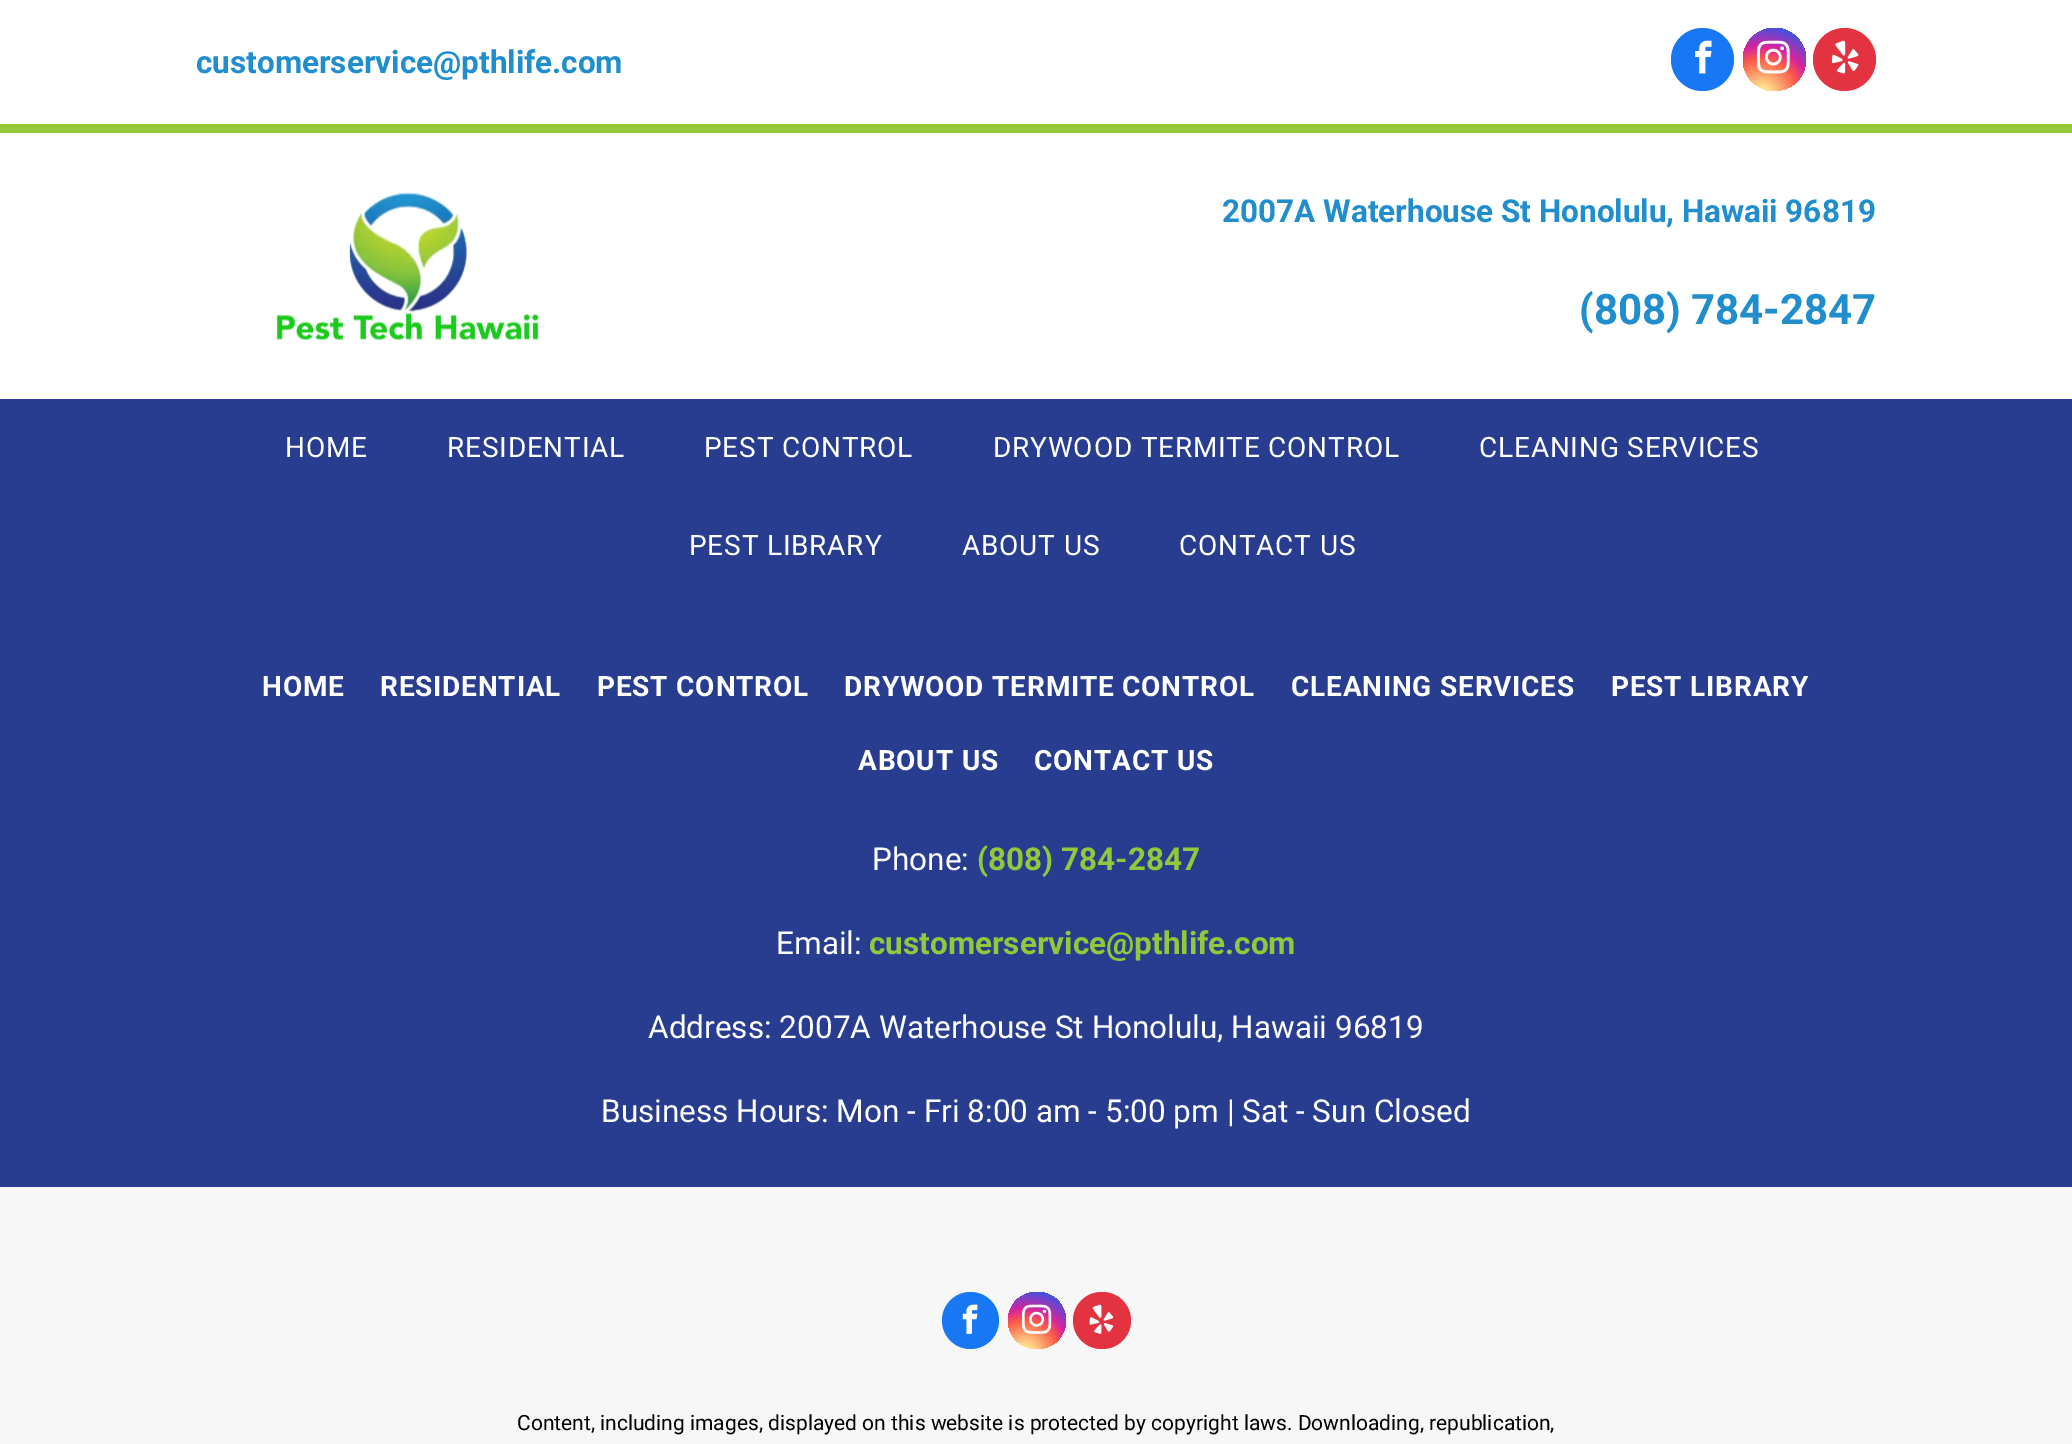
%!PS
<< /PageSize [2072 1444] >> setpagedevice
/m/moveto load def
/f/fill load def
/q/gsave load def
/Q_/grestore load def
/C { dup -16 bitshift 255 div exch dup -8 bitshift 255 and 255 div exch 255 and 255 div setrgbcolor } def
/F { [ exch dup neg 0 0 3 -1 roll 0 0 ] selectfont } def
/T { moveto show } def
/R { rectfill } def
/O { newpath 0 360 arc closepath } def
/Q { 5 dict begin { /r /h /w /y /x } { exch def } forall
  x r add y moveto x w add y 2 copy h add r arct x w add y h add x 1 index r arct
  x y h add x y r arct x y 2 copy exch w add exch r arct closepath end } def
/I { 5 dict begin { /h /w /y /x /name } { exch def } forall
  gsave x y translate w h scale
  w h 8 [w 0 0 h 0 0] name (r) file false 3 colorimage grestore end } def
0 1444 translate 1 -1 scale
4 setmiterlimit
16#283D90 C
0 0 2072 1444 R
16#FFFFFF C
0 0 2072 399 R
16#93C83A C
0 124 2072 9 R
/Roboto-Bold 31.5 F
16#208DCD C
(customerservice@pthlife.com) 196 73 T
16#1877F2 C
1702.5 59.5 31.5 O f
(1.rgb) 1695 40 17 34 I
q 1774.5 59.5 31.5 O clip newpath 1762 95 translate 81 81 scale
<< /ShadingType 3 /ColorSpace /DeviceRGB /Coords [0 0 0 0 0 1] /Extend [true true] /Function << /FunctionType 3 /Domain [0 1] /Functions [<< /FunctionType 2 /Domain [0 1] /C0 [.992 .957 .592] /C1 [.992 .957 .592] /N 1 >> << /FunctionType 2 /Domain [0 1] /C0 [.992 .957 .592] /C1 [.992 .349 .286] /N 1 >> << /FunctionType 2 /Domain [0 1] /C0 [.992 .349 .286] /C1 [.839 .141 .624] /N 1 >> << /FunctionType 2 /Domain [0 1] /C0 [.839 .141 .624] /C1 [.157 .353 .922] /N 1 >> << /FunctionType 2 /Domain [0 1] /C0 [.157 .353 .922] /C1 [.157 .353 .922] /N 1 >>] /Bounds [.05 .45 .6 .9] /Encode [0 1 0 1 0 1 0 1 0 1] >> >> shfill Q_
(2.rgb) 1757 40 33 34 I
16#E43340 C
1844.5 59.5 31.5 O f
(3.rgb) 1831 40 28 34 I
(4.rgb) 276 192 263 148 I
16#208DCD C
(2007A Waterhouse St Honolulu, Hawaii 96819) 1222 222 T
/Roboto-Bold 42 F
(\(808\) 784-2847) 1579 324 T
/Roboto-Regular 28 F
16#FFFFFF C
285 457 m .8 0 (HOME) ashow
447 457 m .8 0 (RESIDENTIAL) ashow
704 457 m .8 0 (PEST CONTROL) ashow
993 457 m .8 0 (DRYWOOD TERMITE CONTROL) ashow
1479 457 m .8 0 (CLEANING SERVICES) ashow
689 555 m .8 0 (PEST LIBRARY) ashow
962 555 m .8 0 (ABOUT US) ashow
1179 555 m .8 0 (CONTACT US) ashow
/Roboto-Bold 28 F
262 696 m .8 0 (HOME) ashow
380 696 m .8 0 (RESIDENTIAL) ashow
597 696 m .8 0 (PEST CONTROL) ashow
844 696 m .8 0 (DRYWOOD TERMITE CONTROL) ashow
1291 696 m .8 0 (CLEANING SERVICES) ashow
1611 696 m .8 0 (PEST LIBRARY) ashow
858 770 m .8 0 (ABOUT US) ashow
1034 770 m .8 0 (CONTACT US) ashow
/Roboto-Regular 31.5 F
(Phone:) 872 870 T
/Roboto-Bold 31.5 F
16#93C83A C
(\(808\) 784-2847) 977 870 T
/Roboto-Regular 31.5 F
16#FFFFFF C
(Email:) 776 954 T
/Roboto-Bold 31.5 F
16#93C83A C
(customerservice@pthlife.com) 869 954 T
/Roboto-Regular 31.5 F
16#FFFFFF C
(Address: 2007A Waterhouse St Honolulu, Hawaii 96819) 648 1038 T
(Business Hours: Mon - Fri 8:00 am - 5:00 pm | Sat - Sun Closed) 601 1122 T
16#F7F7F7 C
0 1187 2072 257 R
16#1877F2 C
970.5 1320.5 28.5 O f
(5.rgb) 962 1304 16 30 I
q 1008 1292 58 57 28.5 Q clip newpath 1025 1353 translate 74 74 scale
<< /ShadingType 3 /ColorSpace /DeviceRGB /Coords [0 0 0 0 0 1] /Extend [true true] /Function << /FunctionType 3 /Domain [0 1] /Functions [<< /FunctionType 2 /Domain [0 1] /C0 [.992 .957 .592] /C1 [.992 .957 .592] /N 1 >> << /FunctionType 2 /Domain [0 1] /C0 [.992 .957 .592] /C1 [.992 .349 .286] /N 1 >> << /FunctionType 2 /Domain [0 1] /C0 [.992 .349 .286] /C1 [.839 .141 .624] /N 1 >> << /FunctionType 2 /Domain [0 1] /C0 [.839 .141 .624] /C1 [.157 .353 .922] /N 1 >> << /FunctionType 2 /Domain [0 1] /C0 [.157 .353 .922] /C1 [.157 .353 .922] /N 1 >>] /Bounds [.05 .45 .6 .9] /Encode [0 1 0 1 0 1 0 1 0 1] >> >> shfill Q_
(6.rgb) 1022 1304 30 30 I
16#E43340 C
1073 1292 58 57 28.5 Q f
(7.rgb) 1089 1304 25 30 I
/Roboto-Regular 21 F
16#000000 C
(Content, including images, displayed on this website is protected by copyright laws. Downloading, republication,) 517 1430 T
showpage
